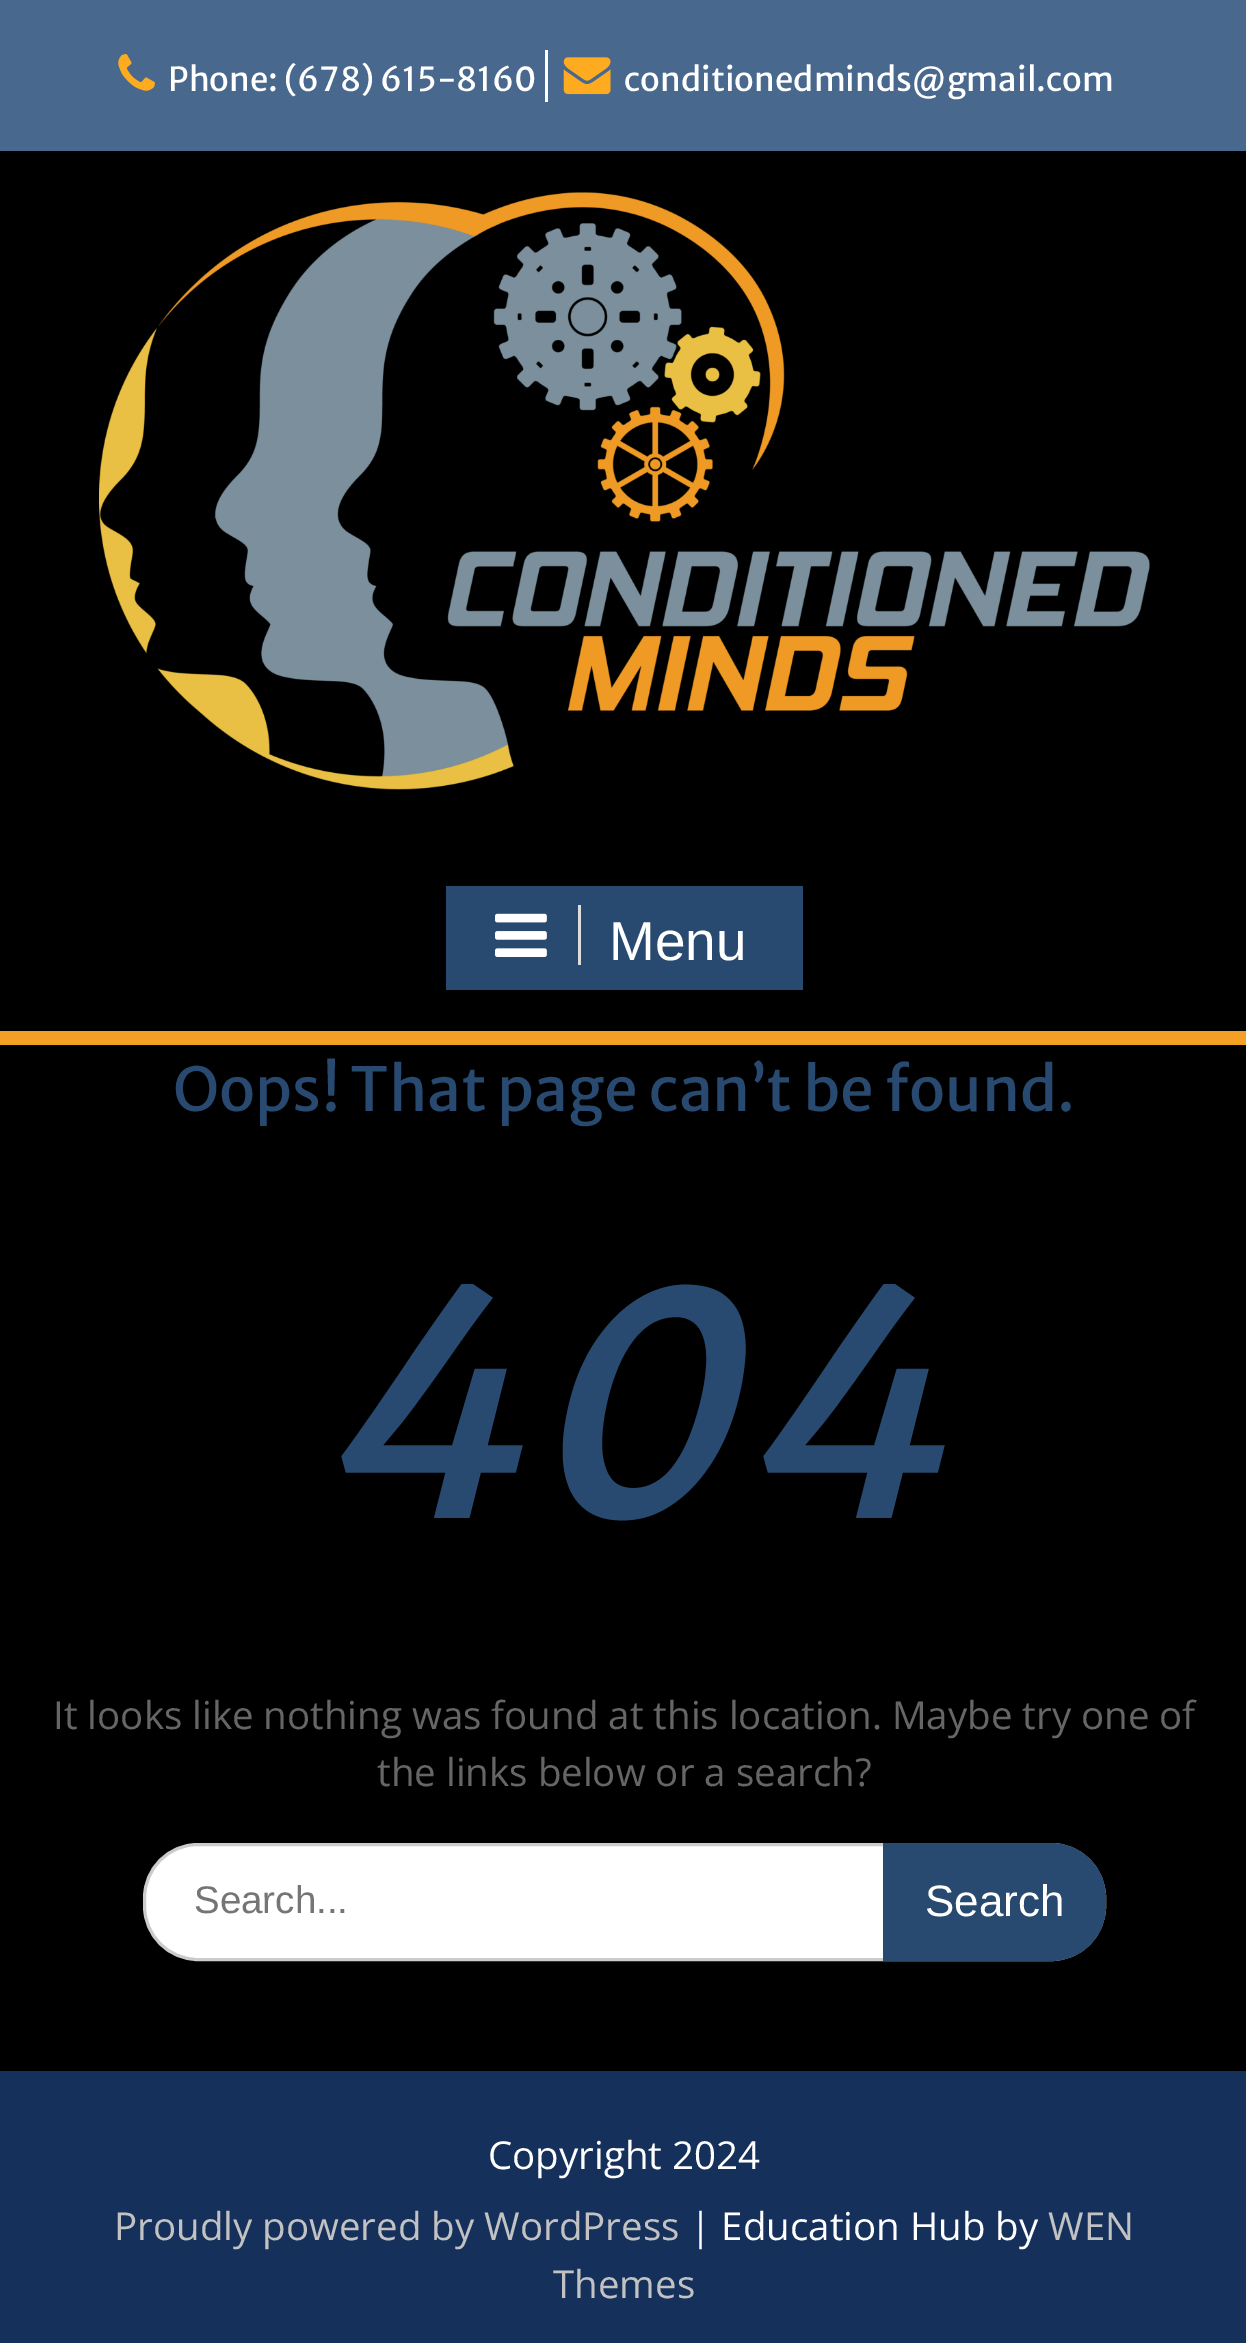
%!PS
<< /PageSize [1246 2343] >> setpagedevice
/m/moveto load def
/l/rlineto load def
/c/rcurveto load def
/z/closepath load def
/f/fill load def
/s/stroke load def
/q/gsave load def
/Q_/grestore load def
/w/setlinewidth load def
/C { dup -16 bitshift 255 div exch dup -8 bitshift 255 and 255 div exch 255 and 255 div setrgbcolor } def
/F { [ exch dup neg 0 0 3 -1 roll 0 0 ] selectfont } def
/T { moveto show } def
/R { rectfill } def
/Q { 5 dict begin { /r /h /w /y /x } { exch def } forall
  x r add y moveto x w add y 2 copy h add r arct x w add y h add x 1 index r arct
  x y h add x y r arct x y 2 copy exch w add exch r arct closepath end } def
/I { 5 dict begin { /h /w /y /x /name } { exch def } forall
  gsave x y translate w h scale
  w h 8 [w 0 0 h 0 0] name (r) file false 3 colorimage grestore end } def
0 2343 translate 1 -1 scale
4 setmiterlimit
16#000000 C
0 0 1246 2343 R
16#49688E C
0 0 1246 151 R
(1.rgb) 118 54 37 37 I
/MerriweatherSans-Regular 33 F
16#FFFFFF C
(Phone: \(678\) 615-8160) 168 91 T
545 50 3 52 R
(2.rgb) 563 57 48 38 I
(conditionedminds@gmail.com) 624 91 T
(3.rgb) 99 192 1051 598 I
16#F4A024 C
0 1031 1246 14 R
16#294A70 C
446 886 357 104 R
16#DDDDDD C
578 905 3 60 R
(4.rgb) 495 913 52 44 I
/LiberationSans-Regular 55 F
16#FFFFFF C
(Menu) 609 960 T
/MerriweatherSans-Regular 60.5 F
16#294A70 C
(Oops! That page can’t be found.) 173 1111 T
/MerriweatherSans-Italic 311 F
(404) 309 1518 T
/OpenSans-Regular 38.5 F
16#666666 C
(It looks like nothing was found at this location. Maybe try one of) 53 1729 T
(the links below or a search?) 377 1786 T
16#FFFFFF C
144.5 1844.5 960 115 53.5 Q q f Q_
16#CCCCCC C
3 w
s
/LiberationSans-Regular 38.5 F
16#757575 C
(Search...) 194 1913 T
16#294A70 C
883 1843 m 168 0 l 30.5 0 55 24.5 55 55 c 0 8 l 0 30.5 -24.5 55 -55 55 c -168 0 l z f
/LiberationSans-Regular 44 F
16#FFFFFF C
(Search) 925 1916 T
16#15305B C
0 2071 1246 272 R
/OpenSans-Regular 38.5 F
16#FFFFFF C
(Copyright 2024) 488 2169 T
16#C2C2C2 C
(Proudly powered by WordPress) 114 2240 T
16#FFFFFF C
(| Education Hub by) 690 2240 T
16#C2C2C2 C
(WEN) 1048 2240 T
(Themes) 553 2298 T
showpage
